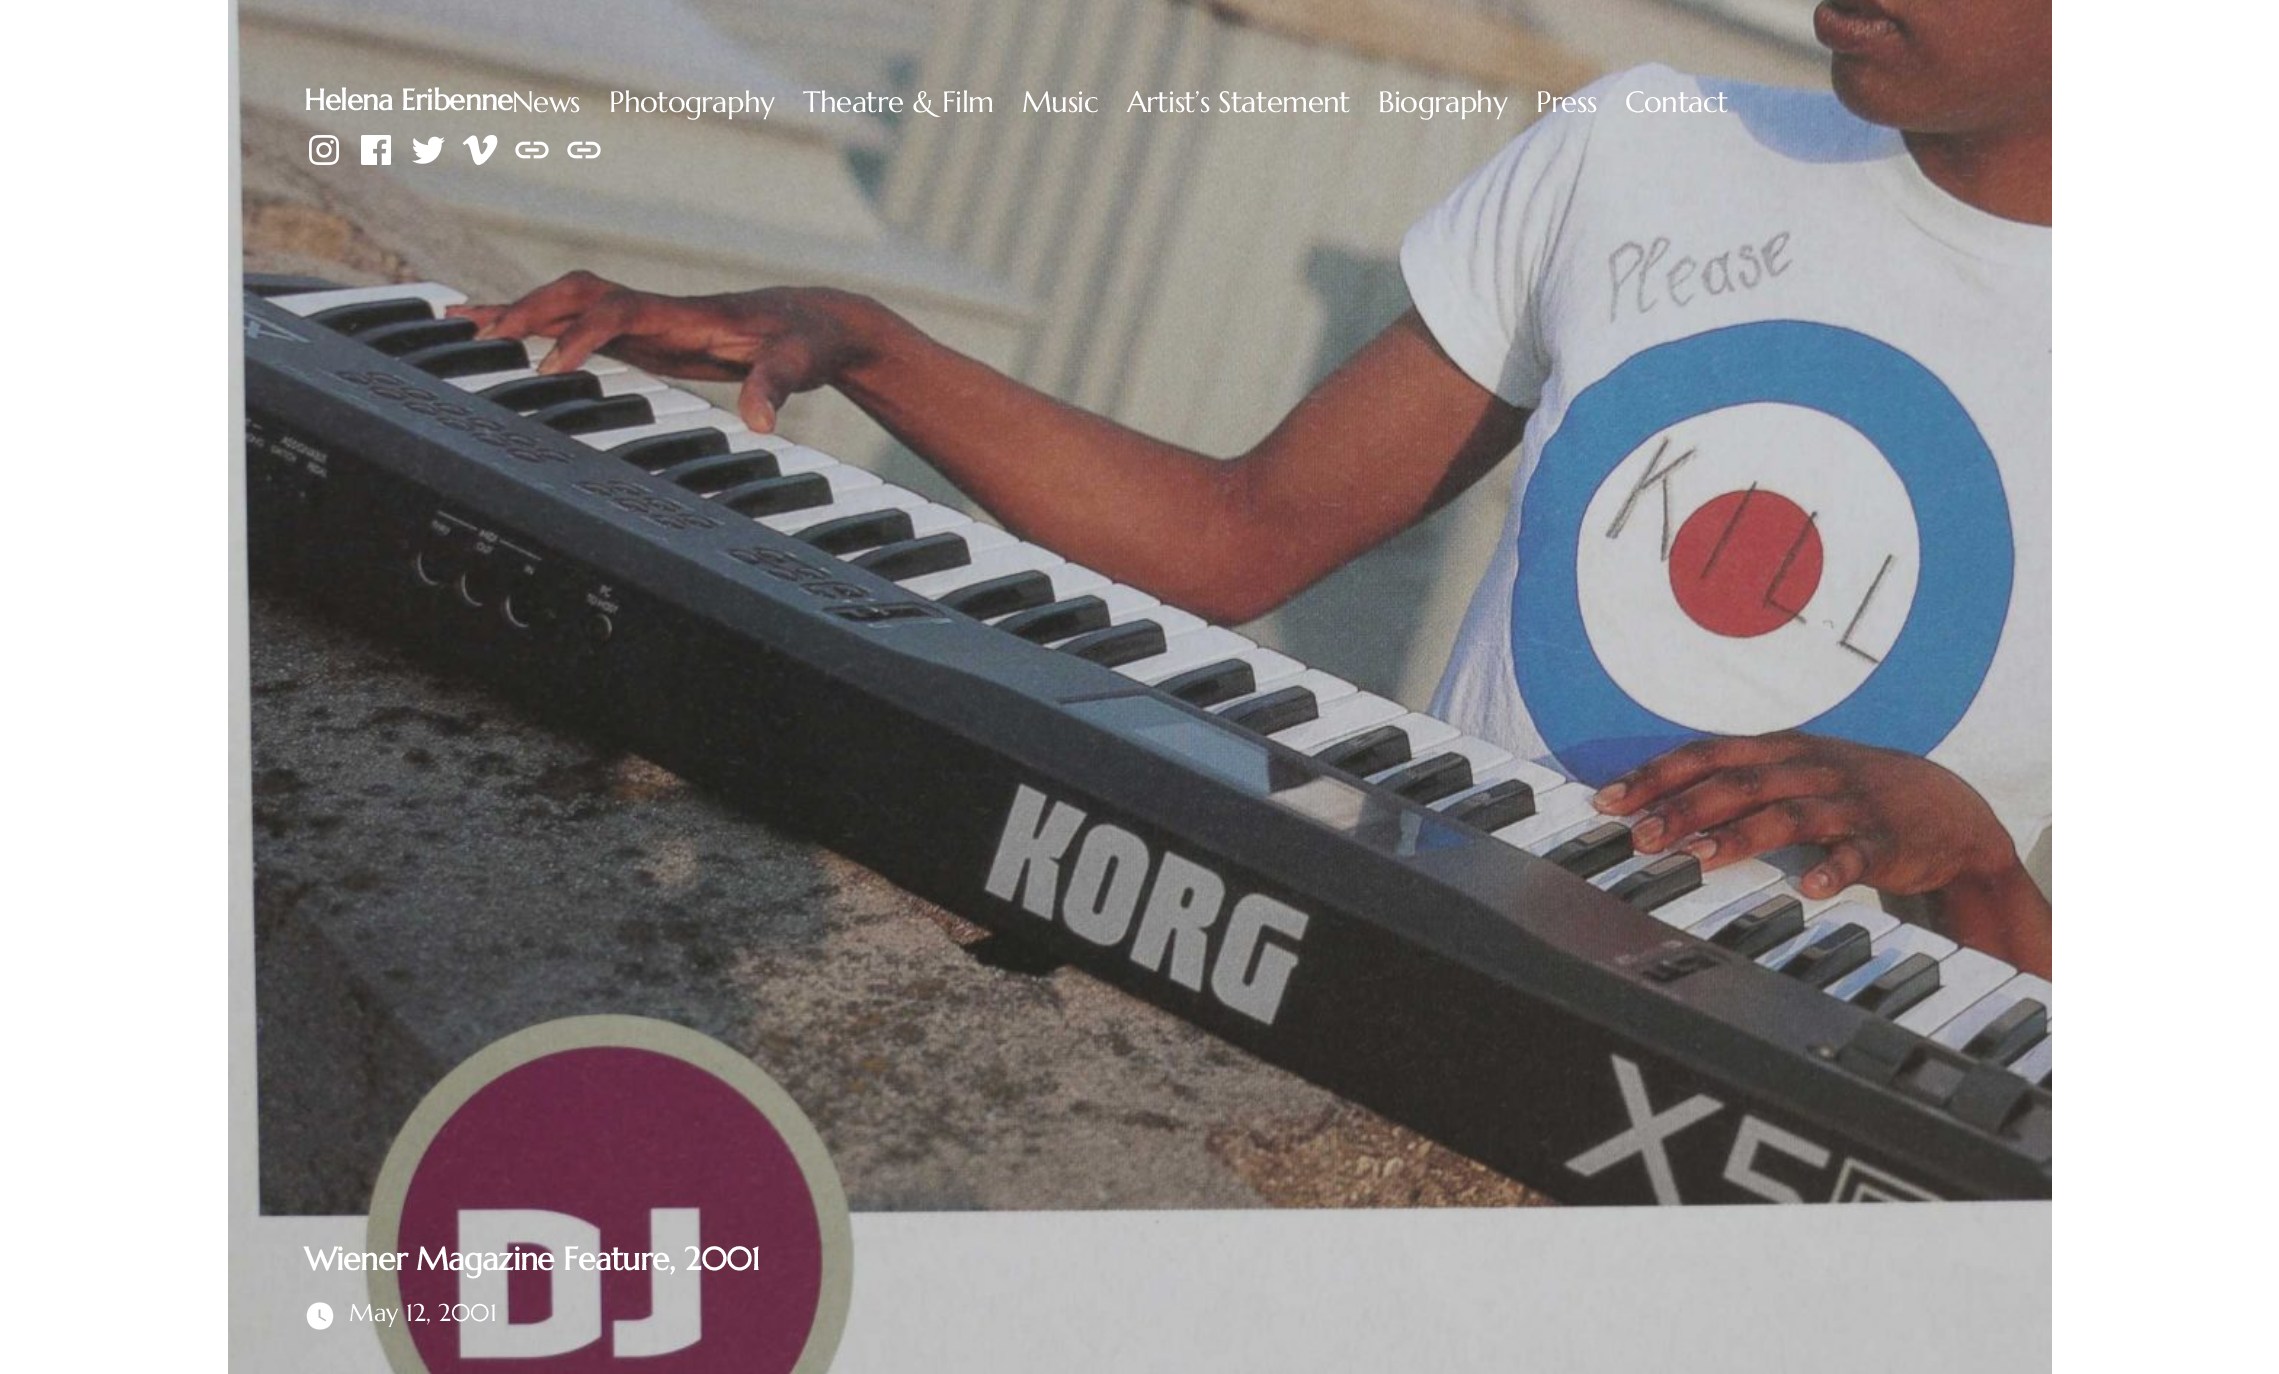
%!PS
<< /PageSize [2279 1374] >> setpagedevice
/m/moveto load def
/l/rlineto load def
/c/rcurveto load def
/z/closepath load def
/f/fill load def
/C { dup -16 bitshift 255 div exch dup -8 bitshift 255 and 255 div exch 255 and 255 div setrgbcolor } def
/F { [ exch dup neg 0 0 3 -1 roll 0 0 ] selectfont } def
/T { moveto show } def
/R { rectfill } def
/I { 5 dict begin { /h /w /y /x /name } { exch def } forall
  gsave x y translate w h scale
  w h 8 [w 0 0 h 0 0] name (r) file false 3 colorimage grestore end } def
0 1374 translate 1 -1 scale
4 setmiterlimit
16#FFFFFF C
0 0 2279 1374 R
(7.rgb) 228 0 1824 1374 I
/Marcellus-Bold 29.5 F
304 110 m -.6 0 (Helena Eribenne) ashow
/Marcellus-Regular 29.5 F
512 112 m -.6 0 (News) ashow
609 112 m -.6 0 (Photography) ashow
803 112 m -.6 0 (Theatre & Film) ashow
1022 112 m -.6 0 (Music) ashow
1127 112 m -.6 0 (Artist’s Statement) ashow
1378 112 m -.6 0 (Biography) ashow
1536 112 m -.6 0 (Press) ashow
1625 112 m -.6 0 (Contact) ashow
(1.rgb) 309 135 30 30 I
(2.rgb) 361 135 30 30 I
(3.rgb) 412 136 33 28 I
(4.rgb) 462 135 36 30 I
(5.rgb) 515 141 34 18 I
(6.rgb) 567 141 34 18 I
/Marcellus-Bold 32.3 F
304 1270 m -.65 0 (Wiener Magazine Feature, 2001) ashow
320 1302.5 m -17.5 0 -17.5 27 0 27 c 17.5 0 17.5 -27 0 -27 c z 325.5 1321.5 m -7 -4 l 0 -8 l 2 0 l 0 7 l 6 3.5 l z f
/Marcellus-Regular 24.25 F
(May 12, 2001) 349 1321 T
showpage
